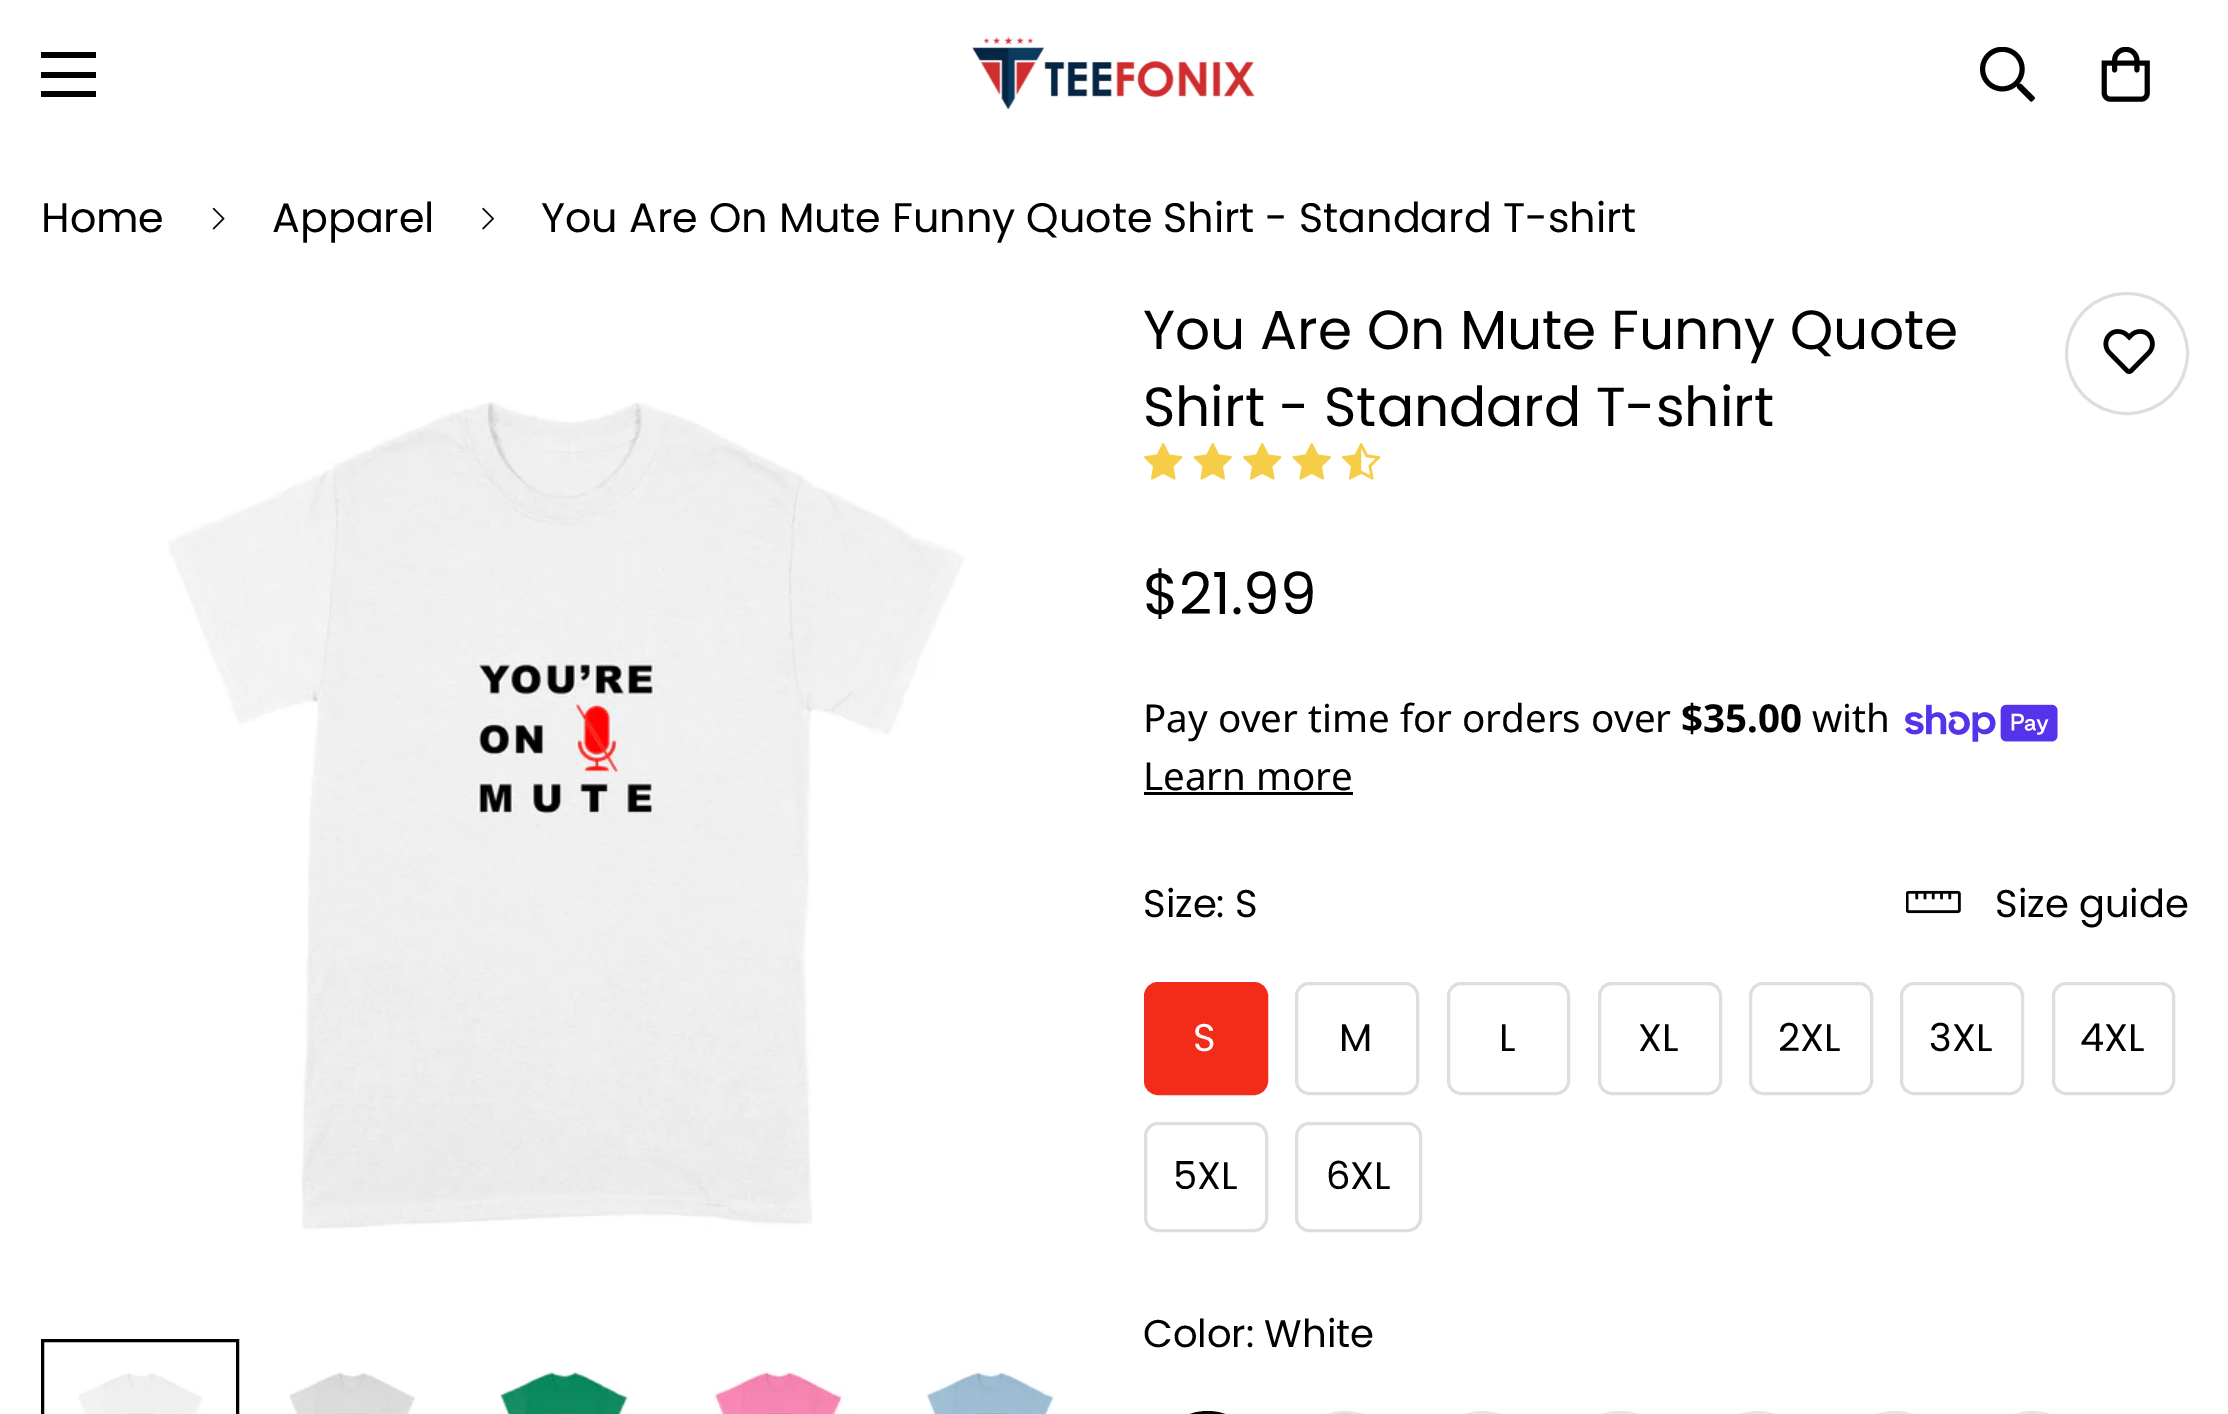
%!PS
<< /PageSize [2228 1414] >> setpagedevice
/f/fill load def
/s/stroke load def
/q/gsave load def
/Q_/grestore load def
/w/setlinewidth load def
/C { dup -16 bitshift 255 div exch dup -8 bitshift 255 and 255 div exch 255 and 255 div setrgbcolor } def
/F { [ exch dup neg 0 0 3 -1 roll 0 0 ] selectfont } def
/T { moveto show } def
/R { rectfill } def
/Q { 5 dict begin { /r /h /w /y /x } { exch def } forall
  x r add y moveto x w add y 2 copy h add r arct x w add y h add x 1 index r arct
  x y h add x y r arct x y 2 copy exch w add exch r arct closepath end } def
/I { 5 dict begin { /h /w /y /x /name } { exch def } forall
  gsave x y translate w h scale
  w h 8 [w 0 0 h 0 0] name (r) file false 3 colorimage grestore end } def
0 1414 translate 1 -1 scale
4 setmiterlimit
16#FFFFFF C
0 0 2228 1414 R
16#000000 C
41 72 55 6 R
41 52 55 6 R
41 91 55 6 R
(1.rgb) 971 35 284 76 I
(2.rgb) 1980 47 55 55 I
(3.rgb) 2101 47 49 55 I
/Poppins-Regular 41.25 F
(Home) 41 232 T
(4.rgb) 212 207 13 23 I
(Apparel) 272 232 T
(5.rgb) 482 207 12 23 I
(You Are On Mute Funny Quote Shirt - Standard T-shirt) 541 232 T
(6.rgb) 168 402 796 828 I
3 w
42.5 1340.5 195 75 rectstroke
(7.rgb) 78 1372 126 42 I
(8.rgb) 289 1372 127 42 I
(9.rgb) 500 1371 129 43 I
(10.rgb) 713 1371 137 43 I
(11.rgb) 926 1372 129 42 I
/Poppins-Regular 55 F
(You Are On Mute Funny Quote) 1143 349 T
(Shirt - Standard T-shirt) 1143 426 T
16#DEDEDE C
2066.5 293.5 121 120 60 Q s
(12.rgb) 2103 329 52 45 I
(13.rgb) 1144 443 39 37 I
(14.rgb) 1193 443 39 37 I
(13.rgb) 1243 443 39 37 I
(14.rgb) 1292 443 39 37 I
(15.rgb) 1342 443 39 37 I
/Poppins-Regular 58 F
16#000000 C
($21.99) 1143 614 T
/NotoSans-Regular 38.5 F
(Pay over time for orders over) 1143 732 T
/NotoSans-Bold 38.5 F
($35.00) 1681 732 T
/NotoSans-Regular 38.5 F
(with) 1812 732 T
(16.rgb) 1905 704 153 38 I
(Learn more) 1143 790 T
1144 792 209 3 R
/Poppins-Regular 38.5 F
(Size: S) 1143 917 T
(17.rgb) 1906 890 55 24 I
(Size guide) 1995 917 T
16#F32B19 C
1145.5 983.5 121 110 12.5 Q q f Q_
s
16#FFFFFF C
(S) 1193 1051 T
16#DEDEDE C
1296.5 983.5 121 110 12.5 Q s
16#000000 C
(M) 1339 1051 T
16#DEDEDE C
1448.5 983.5 120 110 12.5 Q s
16#000000 C
(L) 1499 1051 T
16#DEDEDE C
1599.5 983.5 121 110 12.5 Q s
16#000000 C
(XL) 1638 1051 T
16#DEDEDE C
1750.5 983.5 121 110 12.5 Q s
16#000000 C
(2XL) 1778 1051 T
16#DEDEDE C
1901.5 983.5 121 110 12.5 Q s
16#000000 C
(3XL) 1929 1051 T
16#DEDEDE C
2053.5 983.5 120 110 12.5 Q s
16#000000 C
(4XL) 2080 1051 T
16#DEDEDE C
1145.5 1123.5 121 107 12.5 Q s
16#000000 C
(5XL) 1173 1189 T
16#DEDEDE C
1296.5 1123.5 124 107 12.5 Q s
16#000000 C
(6XL) 1326 1189 T
(Color: White) 1143 1347 T
1151.5 1412.5 112 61 56 Q s
16#E6E6E6 C
1288.5 1412.5 113 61 56 Q s
(18.rgb) 1338 1413 13 1 I
1426.5 1412.5 112 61 56 Q s
1563.5 1412.5 113 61 56 Q s
1701.5 1412.5 112 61 56 Q s
1838.5 1412.5 113 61 56 Q s
1976.5 1412.5 112 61 56 Q s
(19.rgb) 2029 1413 8 1 I
showpage
